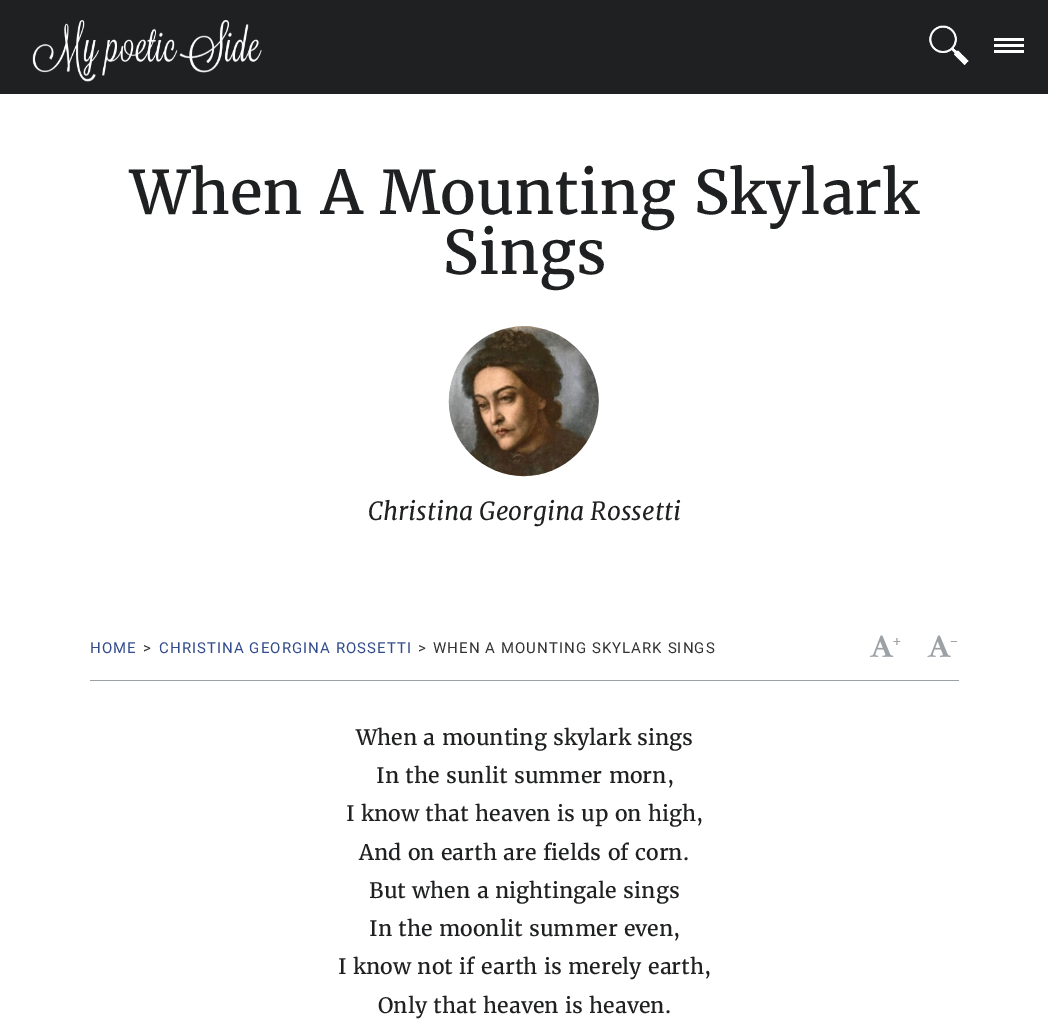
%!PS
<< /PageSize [1048 1027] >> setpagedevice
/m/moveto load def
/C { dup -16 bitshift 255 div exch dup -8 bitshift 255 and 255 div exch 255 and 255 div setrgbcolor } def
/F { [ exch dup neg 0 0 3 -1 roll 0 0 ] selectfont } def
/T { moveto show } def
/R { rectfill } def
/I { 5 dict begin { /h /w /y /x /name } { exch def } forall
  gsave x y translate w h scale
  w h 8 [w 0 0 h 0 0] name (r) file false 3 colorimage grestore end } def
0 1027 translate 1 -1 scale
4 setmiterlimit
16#1F2021 C
0 0 1048 1027 R
(1.rgb) 32 20 230 62 I
(2.rgb) 929 25 40 40 I
16#FFFFFF C
994 44 30 3 R
994 38 30 3 R
994 50 30 3 R
0 94 1048 933 R
/Merriweather-Regular 60 F
16#1F2021 C
(When A Mounting Skylark) 130 214 T
(Sings) 443 274 T
(3.rgb) 448 326 151 151 I
/Merriweather-Italic 25 F
(Christina Georgina Rossetti) 368 520 T
16#9CA1A6 C
90 680 869 1 R
/Roboto-Regular 15 F
16#324C8C C
90 653 m 1.05 0 (HOME) ashow
16#333333 C
143 653 m 1.05 0 (>) ashow
16#324C8C C
159 653 m 1.05 0 (CHRISTINA GEORGINA ROSSETTI) ashow
16#333333 C
418 653 m 1.05 0 (>) ashow
433 653 m 1.05 0 (WHEN A MOUNTING SKYLARK SINGS) ashow
(4.rgb) 870 635 24 22 I
/Merriweather-Regular 15 F
16#9CA1A6 C
(+) 892 646 T
(5.rgb) 927 635 24 22 I
(-) 949 646 T
/Merriweather-Regular 21.25 F
16#1F2021 C
(When a mounting skylark sings) 356 745 T
(In the sunlit summer morn,) 376 783 T
(I know that heaven is up on high,) 346 821 T
(And on earth are fields of corn.) 359 860 T
(But when a nightingale sings) 369 898 T
(In the moonlit summer even,) 369 936 T
(I know not if earth is merely earth,) 338 974 T
(Only that heaven is heaven.) 378 1013 T
showpage
